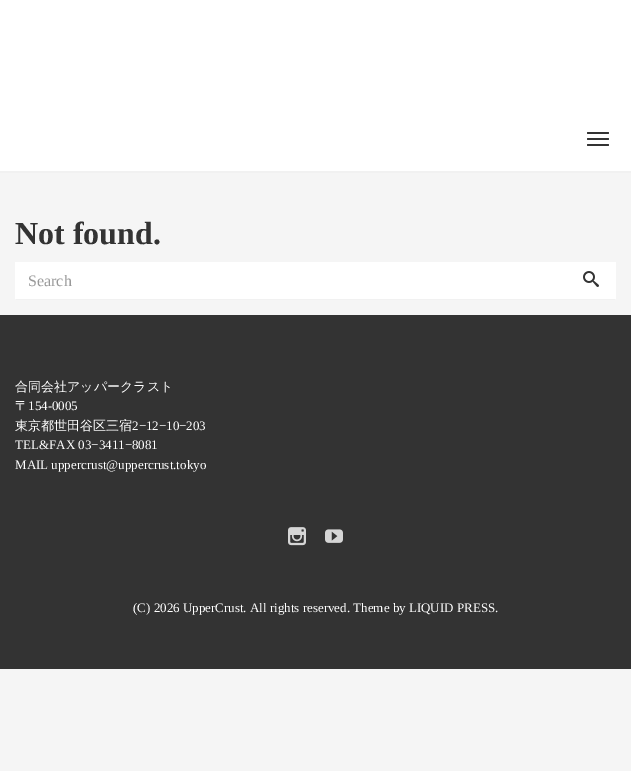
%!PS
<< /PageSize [631 771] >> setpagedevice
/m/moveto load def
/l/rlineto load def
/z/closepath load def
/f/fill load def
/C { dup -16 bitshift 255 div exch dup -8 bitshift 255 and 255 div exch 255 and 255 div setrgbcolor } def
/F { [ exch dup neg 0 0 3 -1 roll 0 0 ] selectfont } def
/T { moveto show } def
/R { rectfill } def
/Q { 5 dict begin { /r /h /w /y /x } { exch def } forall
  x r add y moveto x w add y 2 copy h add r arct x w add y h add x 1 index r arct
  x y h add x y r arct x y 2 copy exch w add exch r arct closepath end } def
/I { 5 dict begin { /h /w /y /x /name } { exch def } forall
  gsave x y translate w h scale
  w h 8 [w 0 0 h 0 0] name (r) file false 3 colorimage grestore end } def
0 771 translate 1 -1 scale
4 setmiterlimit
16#F5F5F5 C
0 0 631 771 R
16#FFFFFF C
0 0 631 171 R
16#F1F1F1 C
0 171 631 2 R
16#333333 C
587 132 22 2 1 Q f
587 138 22 2 1 Q f
587 144 22 2 1 Q f
/LiberationSerif-Bold 32 F
(Not found.) 15 244 T
16#FFFFFF C
15 262 601 38 R
16#F1F1F1 C
616 300 m -601 0 l 1 -1 l 599 0 l z f
/LiberationSerif-Regular 16 F
16#999999 C
(Search) 28 286 T
(1.rgb) 583 271 16 16 I
16#333333 C
0 315 631 354 R
/WenQuanYiZenHei-Medium 13 F
16#FFFFFF C
(合同会社アッパークラスト) 15 391 T
(〒) 15 410 T
/LiberationSerif-Regular 13 F
(154-0005) 28 410 T
/WenQuanYiZenHei-Medium 13 F
(東京都世田谷区三宿) 15 430 T
/LiberationSerif-Regular 13 F
(2−12−10−203) 132 430 T
(TEL&FAX 03−3411−8081) 15 449 T
(MAIL uppercrust@uppercrust.tokyo) 15 469 T
(2.rgb) 288 527 18 19 I
(3.rgb) 325 529 18 14 I
(\(C\) 2026 UpperCrust. All rights reserved. Theme by LIQUID PRESS.) 133 612 T
showpage
